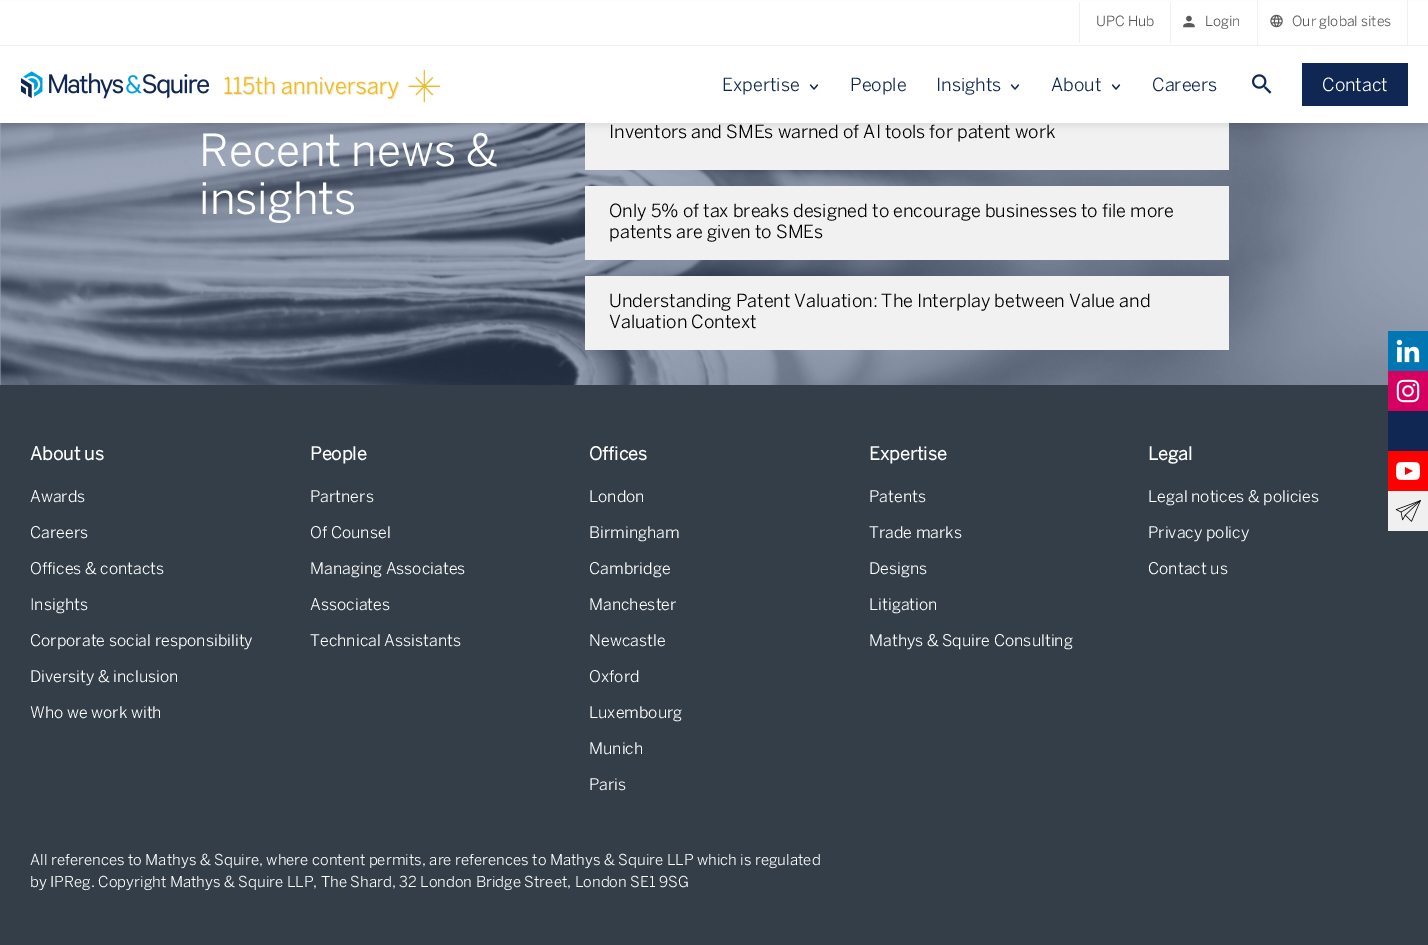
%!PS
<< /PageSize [1428 945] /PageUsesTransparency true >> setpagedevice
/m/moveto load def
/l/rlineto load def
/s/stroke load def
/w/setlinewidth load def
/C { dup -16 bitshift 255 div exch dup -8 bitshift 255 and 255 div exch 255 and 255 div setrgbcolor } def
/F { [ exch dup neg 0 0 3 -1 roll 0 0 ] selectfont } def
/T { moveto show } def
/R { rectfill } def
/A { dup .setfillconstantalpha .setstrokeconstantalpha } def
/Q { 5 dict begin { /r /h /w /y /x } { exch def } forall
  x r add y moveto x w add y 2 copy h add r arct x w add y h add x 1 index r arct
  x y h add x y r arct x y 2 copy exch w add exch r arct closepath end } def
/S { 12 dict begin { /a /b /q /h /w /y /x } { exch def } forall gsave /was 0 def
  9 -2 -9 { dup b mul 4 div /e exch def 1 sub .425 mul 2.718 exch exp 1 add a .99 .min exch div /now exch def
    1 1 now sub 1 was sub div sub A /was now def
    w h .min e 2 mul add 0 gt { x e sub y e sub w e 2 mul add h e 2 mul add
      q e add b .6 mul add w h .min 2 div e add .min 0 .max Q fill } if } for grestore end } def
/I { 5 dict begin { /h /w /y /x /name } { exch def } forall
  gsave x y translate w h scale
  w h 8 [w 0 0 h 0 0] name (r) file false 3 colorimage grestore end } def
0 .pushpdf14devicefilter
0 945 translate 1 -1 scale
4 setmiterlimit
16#FFFFFF C
0 0 1428 945 R
(6.rgb) 0 123 1428 262 I
16#F1F1F1 C
585 123 644 47 R
16#000000 C
2 6 1424 119 0 4 .1 S
16#FFFFFF C
0 1 1428 122 R
16#F0F0F0 C
0 45 1428 1 R
1079 2 1 41 R
/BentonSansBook-Regular 14 F
16#58595B C
(UPC Hub) 1096 26 T
16#F0F0F0 C
1170 2 1 41 R
(1.rgb) 1183 15 12 13 I
16#58595B C
(Login) 1205 26 T
16#F0F0F0 C
1407 0 1 45 R
1257 0 1 45 R
(2.rgb) 1270 14 13 14 I
16#58595B C
(Our global sites) 1292 26 T
(3.rgb) 20 71 190 28 I
(4.rgb) 224 69 218 34 I
/BentonSansBook-Regular 18 F
16#102754 C
(Expertise) 722 91 T
1.2 w
1 setlinecap
1 setlinejoin
810.5 85 m 3.5 4 l 3.5 -4 l s
(People) 850 91 T
(Insights) 936 91 T
1011.5 85 m 3.5 4 l 3.5 -4 l s
(About) 1051 91 T
1112.5 85 m 3.5 4 l 3.5 -4 l s
(Careers) 1152 91 T
(5.rgb) 1252 74 20 20 I
1302 63 106 43 R
16#FFFFFF C
(Contact) 1322 91 T
/BentonSansBook-Regular 44 F
(Recent news &) 199 166 T
(insights) 199 214 T
/BentonSansBook-Regular 18 F
16#000000 C
(Inventors and SMEs warned of AI tools for patent work) 609 138 T
16#F1F1F1 C
585 186 644 74 R
16#000000 C
(Only 5% of tax breaks designed to encourage businesses to file more) 609 217 T
(patents are given to SMEs) 609 238 T
16#F1F1F1 C
585 276 644 74 R
16#000000 C
(Understanding Patent Valuation: The Interplay between Value and) 609 307 T
(Valuation Context) 609 328 T
16#333E48 C
0 385 1428 560 R
/BentonSansBook-Bold 18 F
16#FFFFFF C
(About us) 30 460 T
/BentonSansBook-Regular 16 F
(Awards) 30 502 T
(Careers) 30 538 T
(Offices & contacts) 30 574 T
(Insights) 30 610 T
(Corporate social responsibility) 30 646 T
(Diversity & inclusion) 30 682 T
(Who we work with) 30 718 T
/BentonSansBook-Bold 18 F
(People) 310 460 T
/BentonSansBook-Regular 16 F
(Partners) 310 502 T
(Of Counsel) 310 538 T
(Managing Associates) 310 574 T
(Associates) 310 610 T
(Technical Assistants) 310 646 T
/BentonSansBook-Bold 18 F
(Offices) 589 460 T
/BentonSansBook-Regular 16 F
(London) 589 502 T
(Birmingham) 589 538 T
(Cambridge) 589 574 T
(Manchester) 589 610 T
(Newcastle) 589 646 T
(Oxford) 589 682 T
(Luxembourg) 589 718 T
(Munich) 589 754 T
(Paris) 589 790 T
/BentonSansBook-Bold 18 F
(Expertise) 869 460 T
/BentonSansBook-Regular 16 F
(Patents) 869 502 T
(Trade marks) 869 538 T
(Designs) 869 574 T
(Litigation) 869 610 T
(Mathys & Squire Consulting) 869 646 T
/BentonSansBook-Bold 18 F
(Legal) 1148 460 T
/BentonSansBook-Regular 16 F
(Legal notices & policies) 1148 502 T
(Privacy policy) 1148 538 T
(Contact us) 1148 574 T
/BentonSansBook-Regular 15 F
(All references to Mathys & Squire, where content permits, are references to Mathys & Squire LLP which is regulated) 30 865 T
(by IPReg. Copyright Mathys & Squire LLP, The Shard, 32 London Bridge Street, London SE1 9SG) 30 887 T
(7.rgb) 1388 331 40 40 I
(8.rgb) 1388 371 40 40 I
16#102754 C
1388 411 40 40 R
16#FF0000 C
1388 451 40 40 R
(9.rgb) 1396 462 24 18 I
16#F0F0F1 C
1388 491 40 40 R
(10.rgb) 1395 500 26 22 I
.poppdf14devicefilter showpage
